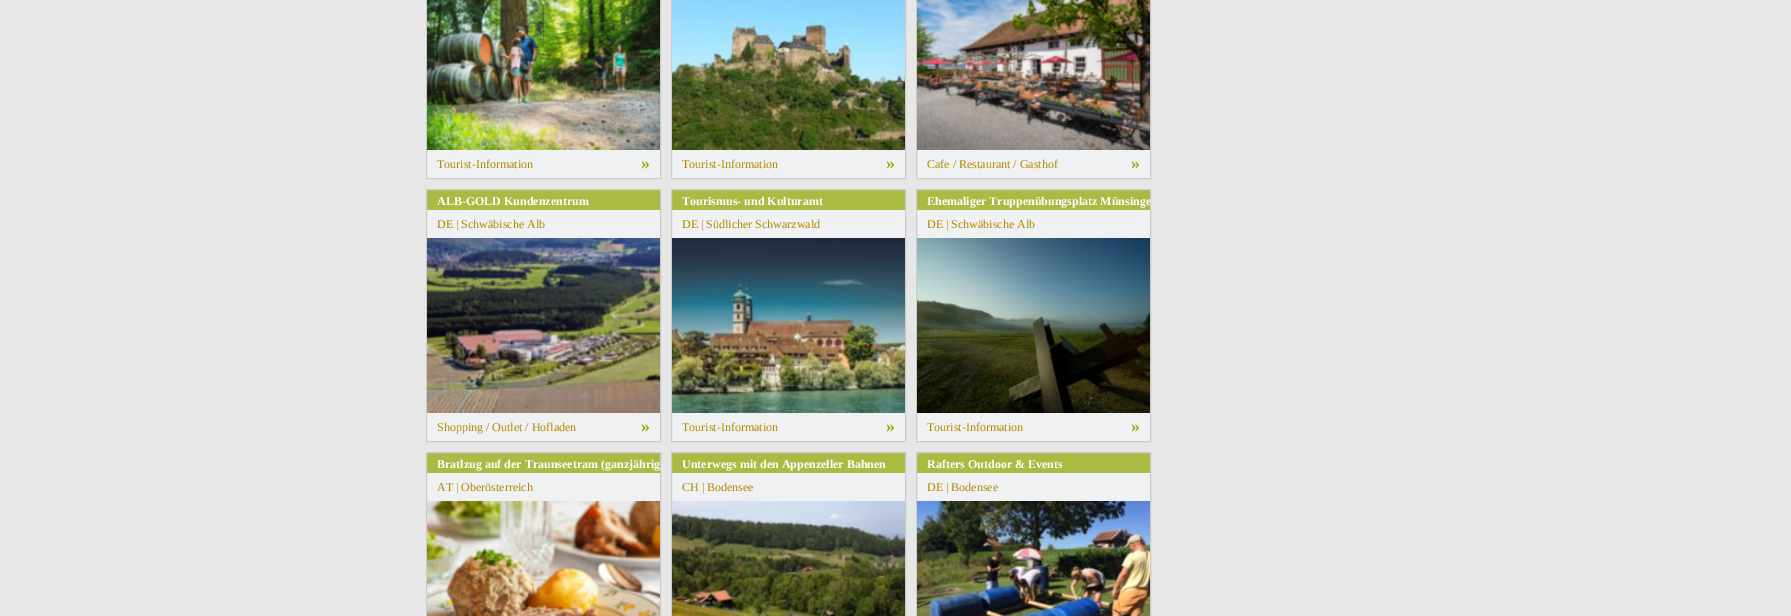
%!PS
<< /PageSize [1791 616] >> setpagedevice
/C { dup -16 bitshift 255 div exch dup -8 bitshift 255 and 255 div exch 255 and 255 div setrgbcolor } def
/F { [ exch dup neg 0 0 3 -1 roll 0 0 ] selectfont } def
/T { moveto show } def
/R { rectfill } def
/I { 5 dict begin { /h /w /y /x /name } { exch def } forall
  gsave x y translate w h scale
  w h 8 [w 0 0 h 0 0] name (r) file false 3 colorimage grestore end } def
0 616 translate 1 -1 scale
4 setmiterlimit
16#E7E7E7 C
0 0 1791 616 R
16#F0F1F2 C
427 150 233 28 R
16#CCCCCC C
426.5 -.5 234 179 rectstroke
(1.rgb) 427 0 233 150 I
/LiberationSerif-Regular 12 F
16#B28A00 C
(Tourist-Information) 437 168 T
/LiberationSerif-Bold 18 F
16#96AD04 C
(») 641 169 T
16#F0F1F2 C
672 150 233 28 R
16#CCCCCC C
671.5 -.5 234 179 rectstroke
(2.rgb) 672 0 233 150 I
/LiberationSerif-Regular 12 F
16#B28A00 C
(Tourist-Information) 682 168 T
/LiberationSerif-Bold 18 F
16#96AD04 C
(») 886 169 T
16#F0F1F2 C
917 150 233 28 R
16#CCCCCC C
916.5 -.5 234 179 rectstroke
(3.rgb) 917 0 233 150 I
/LiberationSerif-Regular 12 F
16#B28A00 C
(Cafe / Restaurant / Gasthof) 927 168 T
/LiberationSerif-Bold 18 F
16#96AD04 C
(») 1131 169 T
16#F0F1F2 C
427 210 233 231 R
16#ABBA42 C
427 190 233 20 R
16#CCCCCC C
426.5 189.5 234 252 rectstroke
/LiberationSerif-Bold 12 F
16#FFFFFF C
(ALB-GOLD Kundenzentrum) 437 205 T
/LiberationSerif-Regular 12 F
16#B28A00 C
(DE | Schwäbische Alb) 437 228 T
(4.rgb) 427 238 233 175 I
(Shopping / Outlet / Hofladen) 437 431 T
/LiberationSerif-Bold 18 F
16#96AD04 C
(») 641 432 T
16#F0F1F2 C
672 210 233 231 R
16#ABBA42 C
672 190 233 20 R
16#CCCCCC C
671.5 189.5 234 252 rectstroke
/LiberationSerif-Bold 12 F
16#FFFFFF C
(Tourismus- und Kulturamt) 682 205 T
/LiberationSerif-Regular 12 F
16#B28A00 C
(DE | Südlicher Schwarzwald) 682 228 T
(5.rgb) 672 238 233 175 I
(Tourist-Information) 682 431 T
/LiberationSerif-Bold 18 F
16#96AD04 C
(») 886 432 T
16#F0F1F2 C
917 210 233 231 R
16#ABBA42 C
917 190 233 20 R
16#CCCCCC C
916.5 189.5 234 252 rectstroke
/LiberationSerif-Bold 12 F
16#FFFFFF C
(Ehemaliger Truppenübungsplatz Münsinge) 927 205 T
/LiberationSerif-Regular 12 F
16#B28A00 C
(DE | Schwäbische Alb) 927 228 T
(6.rgb) 917 238 233 175 I
(Tourist-Information) 927 431 T
/LiberationSerif-Bold 18 F
16#96AD04 C
(») 1131 432 T
16#F0F1F2 C
427 473 233 28 R
16#ABBA42 C
427 453 233 20 R
16#CCCCCC C
426.5 452.5 234 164 rectstroke
/LiberationSerif-Bold 12 F
16#FFFFFF C
(Bratlzug auf der Traunseetram \(ganzjährig) 437 468 T
/LiberationSerif-Regular 12 F
16#B28A00 C
(AT | Oberösterreich) 437 491 T
(7.rgb) 427 501 233 115 I
16#F0F1F2 C
672 473 233 28 R
16#ABBA42 C
672 453 233 20 R
16#CCCCCC C
671.5 452.5 234 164 rectstroke
/LiberationSerif-Bold 12 F
16#FFFFFF C
(Unterwegs mit den Appenzeller Bahnen) 682 468 T
/LiberationSerif-Regular 12 F
16#B28A00 C
(CH | Bodensee) 682 491 T
(8.rgb) 672 501 233 115 I
16#F0F1F2 C
917 473 233 28 R
16#ABBA42 C
917 453 233 20 R
16#CCCCCC C
916.5 452.5 234 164 rectstroke
/LiberationSerif-Bold 12 F
16#FFFFFF C
(Rafters Outdoor & Events) 927 468 T
/LiberationSerif-Regular 12 F
16#B28A00 C
(DE | Bodensee) 927 491 T
(9.rgb) 917 501 233 115 I
showpage
